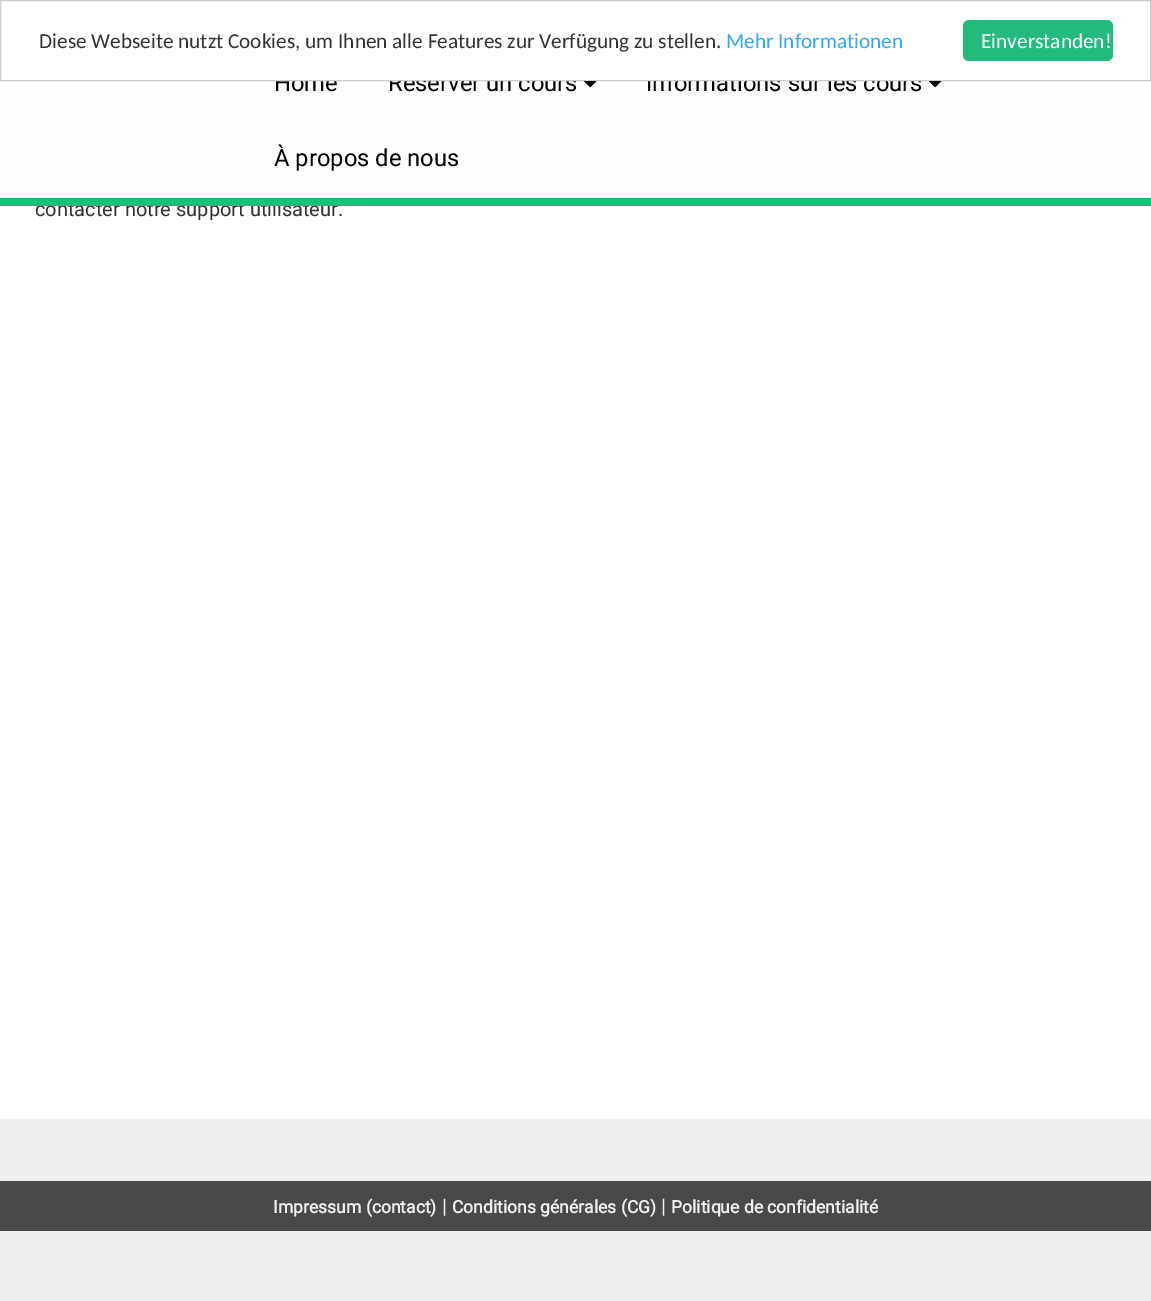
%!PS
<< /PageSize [1151 1301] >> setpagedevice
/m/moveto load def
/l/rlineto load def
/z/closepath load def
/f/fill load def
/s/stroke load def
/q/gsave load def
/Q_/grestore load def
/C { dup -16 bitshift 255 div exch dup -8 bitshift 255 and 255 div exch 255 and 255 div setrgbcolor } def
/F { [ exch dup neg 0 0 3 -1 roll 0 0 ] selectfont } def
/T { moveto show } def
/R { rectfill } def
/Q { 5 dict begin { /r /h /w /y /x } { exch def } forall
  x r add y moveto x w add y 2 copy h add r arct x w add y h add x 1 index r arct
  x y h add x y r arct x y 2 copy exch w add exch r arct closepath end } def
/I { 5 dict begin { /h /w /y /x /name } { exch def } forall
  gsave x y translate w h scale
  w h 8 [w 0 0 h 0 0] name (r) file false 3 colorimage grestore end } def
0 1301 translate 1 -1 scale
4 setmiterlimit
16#EFEFEF C
0 0 1151 1301 R
16#FEFEFE C
0 81 1151 117 R
/Roboto-Regular 23.75 F
16#000000 C
(Home) 274 91 T
(Réserver un cours) 388 91 T
(Informations sur les cours) 646 91 T
16#FFFFFF C
.5 .5 m 1150 0 l 0 80 l -1150 0 l z q f Q_
16#CCCCCC C
s
/Carlito-Regular 21.25 F
16#333333 C
(Diese Webseite nutzt Cookies, um Ihnen alle Features zur Verfügung zu stellen.) 39 48 T
16#31A8F0 C
(Mehr Informationen) 726 48 T
16#22BA7D C
963 20 150 41 6 Q f
16#FFFFFF C
(Einverstanden!) 981 48 T
0 206 1151 913 R
/Roboto-Regular 20 F
16#333333 C
(contacter notre support utilisateur.) 35 216 T
16#23BA7E C
0 198 1151 8 R
(1.rgb) 583 81 14 7 I
(1.rgb) 928 81 14 7 I
/Roboto-Regular 23.75 F
16#000000 C
(À propos de nous) 274 166 T
16#484949 C
0 1181 1151 50 R
/Roboto-Bold 17.5 F
16#EFEFEF C
(Impressum \(contact\)) 273 1213 T
/Roboto-Regular 20 F
(|) 442 1213 T
/Roboto-Bold 17.5 F
(Conditions générales \(CG\)) 452 1213 T
/Roboto-Regular 20 F
(|) 661 1213 T
/Roboto-Bold 17.5 F
(Politique de confidentialité) 671 1213 T
showpage
